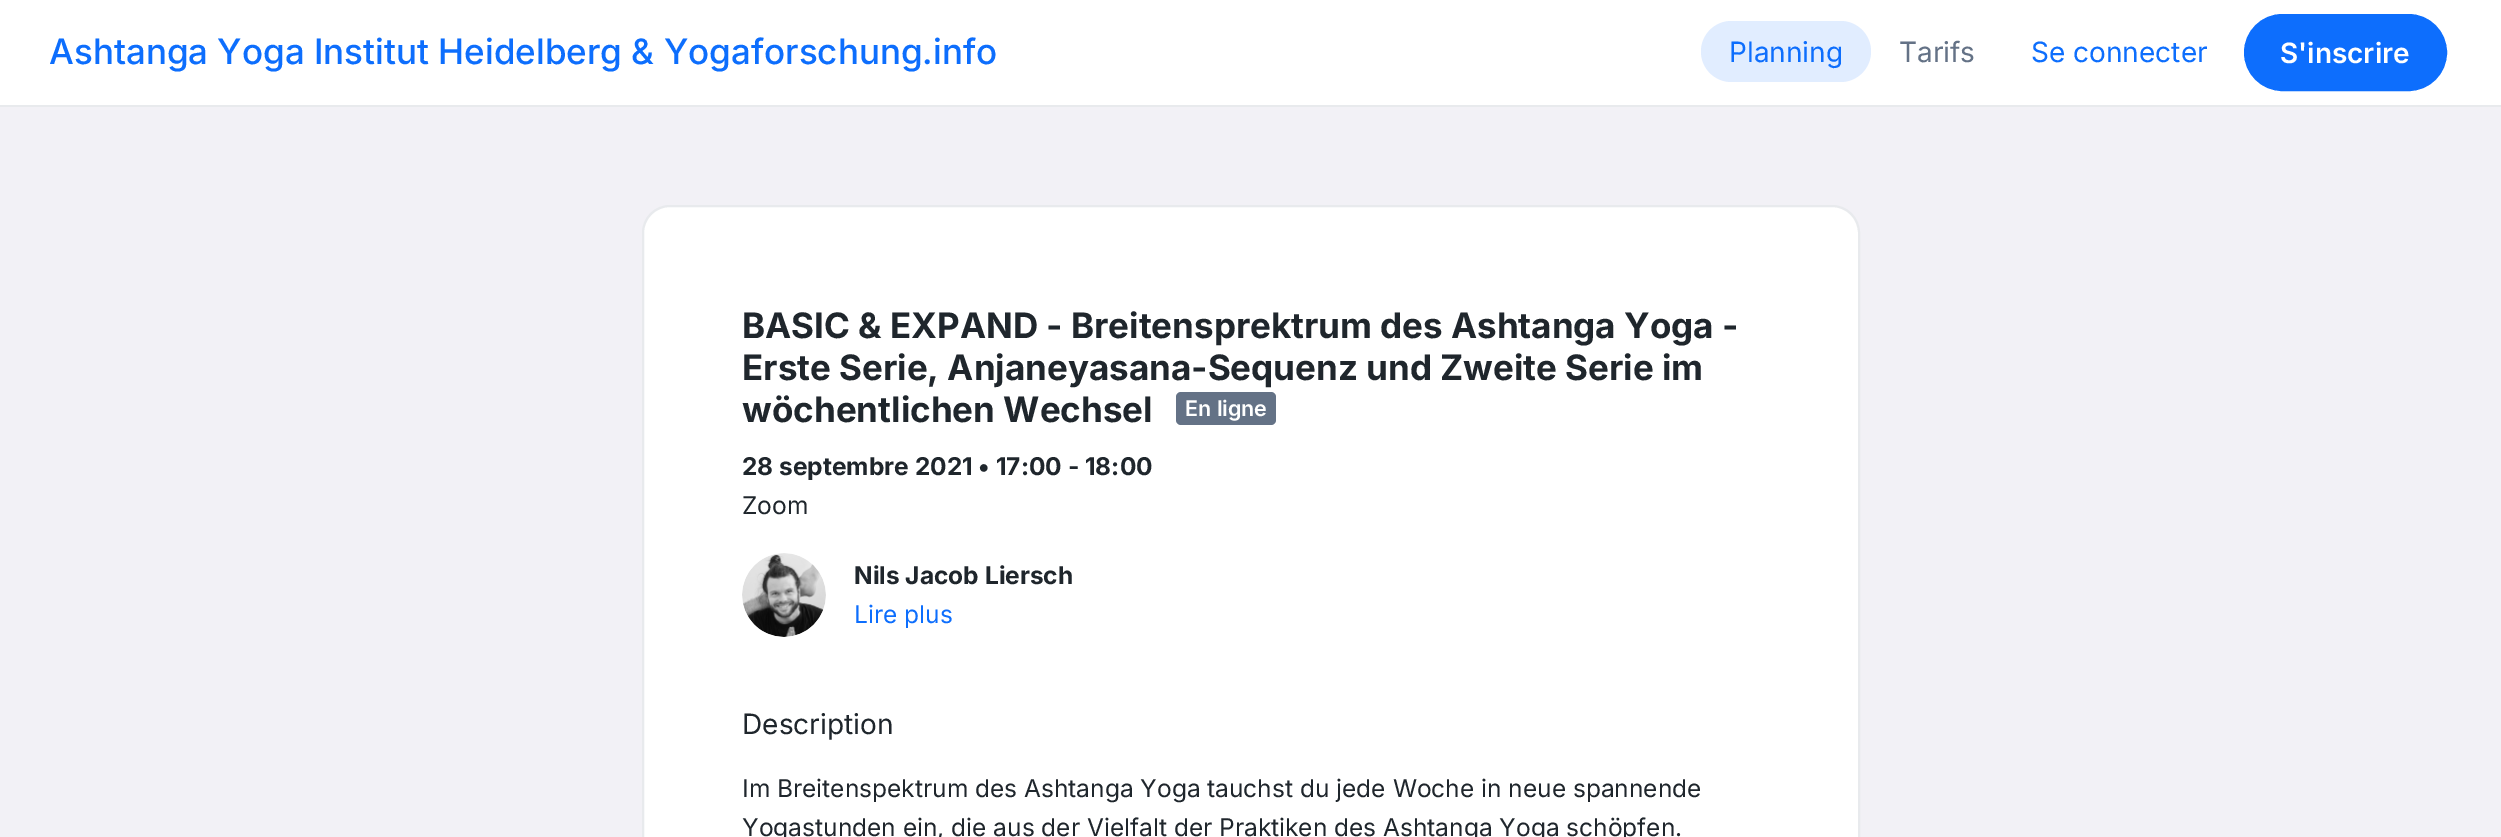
%!PS
<< /PageSize [2501 837] >> setpagedevice
/f/fill load def
/s/stroke load def
/q/gsave load def
/Q_/grestore load def
/w/setlinewidth load def
/C { dup -16 bitshift 255 div exch dup -8 bitshift 255 and 255 div exch 255 and 255 div setrgbcolor } def
/F { [ exch dup neg 0 0 3 -1 roll 0 0 ] selectfont } def
/T { moveto show } def
/R { rectfill } def
/Q { 5 dict begin { /r /h /w /y /x } { exch def } forall
  x r add y moveto x w add y 2 copy h add r arct x w add y h add x 1 index r arct
  x y h add x y r arct x y 2 copy exch w add exch r arct closepath end } def
/I { 5 dict begin { /h /w /y /x /name } { exch def } forall
  gsave x y translate w h scale
  w h 8 [w 0 0 h 0 0] name (r) file false 3 colorimage grestore end } def
0 837 translate 1 -1 scale
4 setmiterlimit
16#F2F1F6 C
0 0 2501 837 R
16#FFFFFF C
0 0 2501 105 R
16#E8EAED C
0 105 2501 2 R
/Inter-Medium 35 F
16#0D6EFD C
(Ashtanga Yoga Institut Heidelberg & Yogaforschung.info) 49 64 T
16#E1EDFF C
1701 21 170 61 30.5 Q f
/Inter-Regular 28 F
16#0D6EFD C
(Planning) 1729 62 T
16#647286 C
(Tarifs) 1899 62 T
16#0D6EFD C
(Se connecter) 2031 62 T
2246 16 199 73 36.5 Q q f Q_
4 w
s
/Inter-SemiBold 28 F
16#FFFFFF C
(S'inscrire) 2280 63 T
643 206 1216 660 27 Q q f Q_
16#E8EAED C
2 w
s
/Inter-Bold 35 F
16#1F262C C
(BASIC & EXPAND - Breitensprektrum des Ashtanga Yoga -) 742 338 T
(Erste Serie, Anjaneyasana-Sequenz und Zweite Serie im) 742 380 T
(wöchentlichen Wechsel) 742 422 T
16#647286 C
1176 392 100 33 5 Q f
/Inter-SemiBold 21.5 F
16#FFFFFF C
(En ligne) 1185 416 T
/Inter-Bold 24.5 F
16#1F262C C
(28 septembre 2021 • 17:00 - 18:00) 742 475 T
/Inter-Regular 24.5 F
(Zoom) 742 514 T
(1.rgb) 742 553 84 84 I
/Inter-Bold 24.5 F
(Nils Jacob Liersch) 854 584 T
/Inter-Regular 24.5 F
16#0D6EFD C
(Lire plus) 854 623 T
/Inter-Regular 28 F
16#1F262C C
(Description) 742 734 T
/Inter-Regular 24.5 F
(Im Breitenspektrum des Ashtanga Yoga tauchst du jede Woche in neue spannende) 742 797 T
(Yogastunden ein, die aus der Vielfalt der Praktiken des Ashtanga Yoga schöpfen.) 742 836 T
showpage
